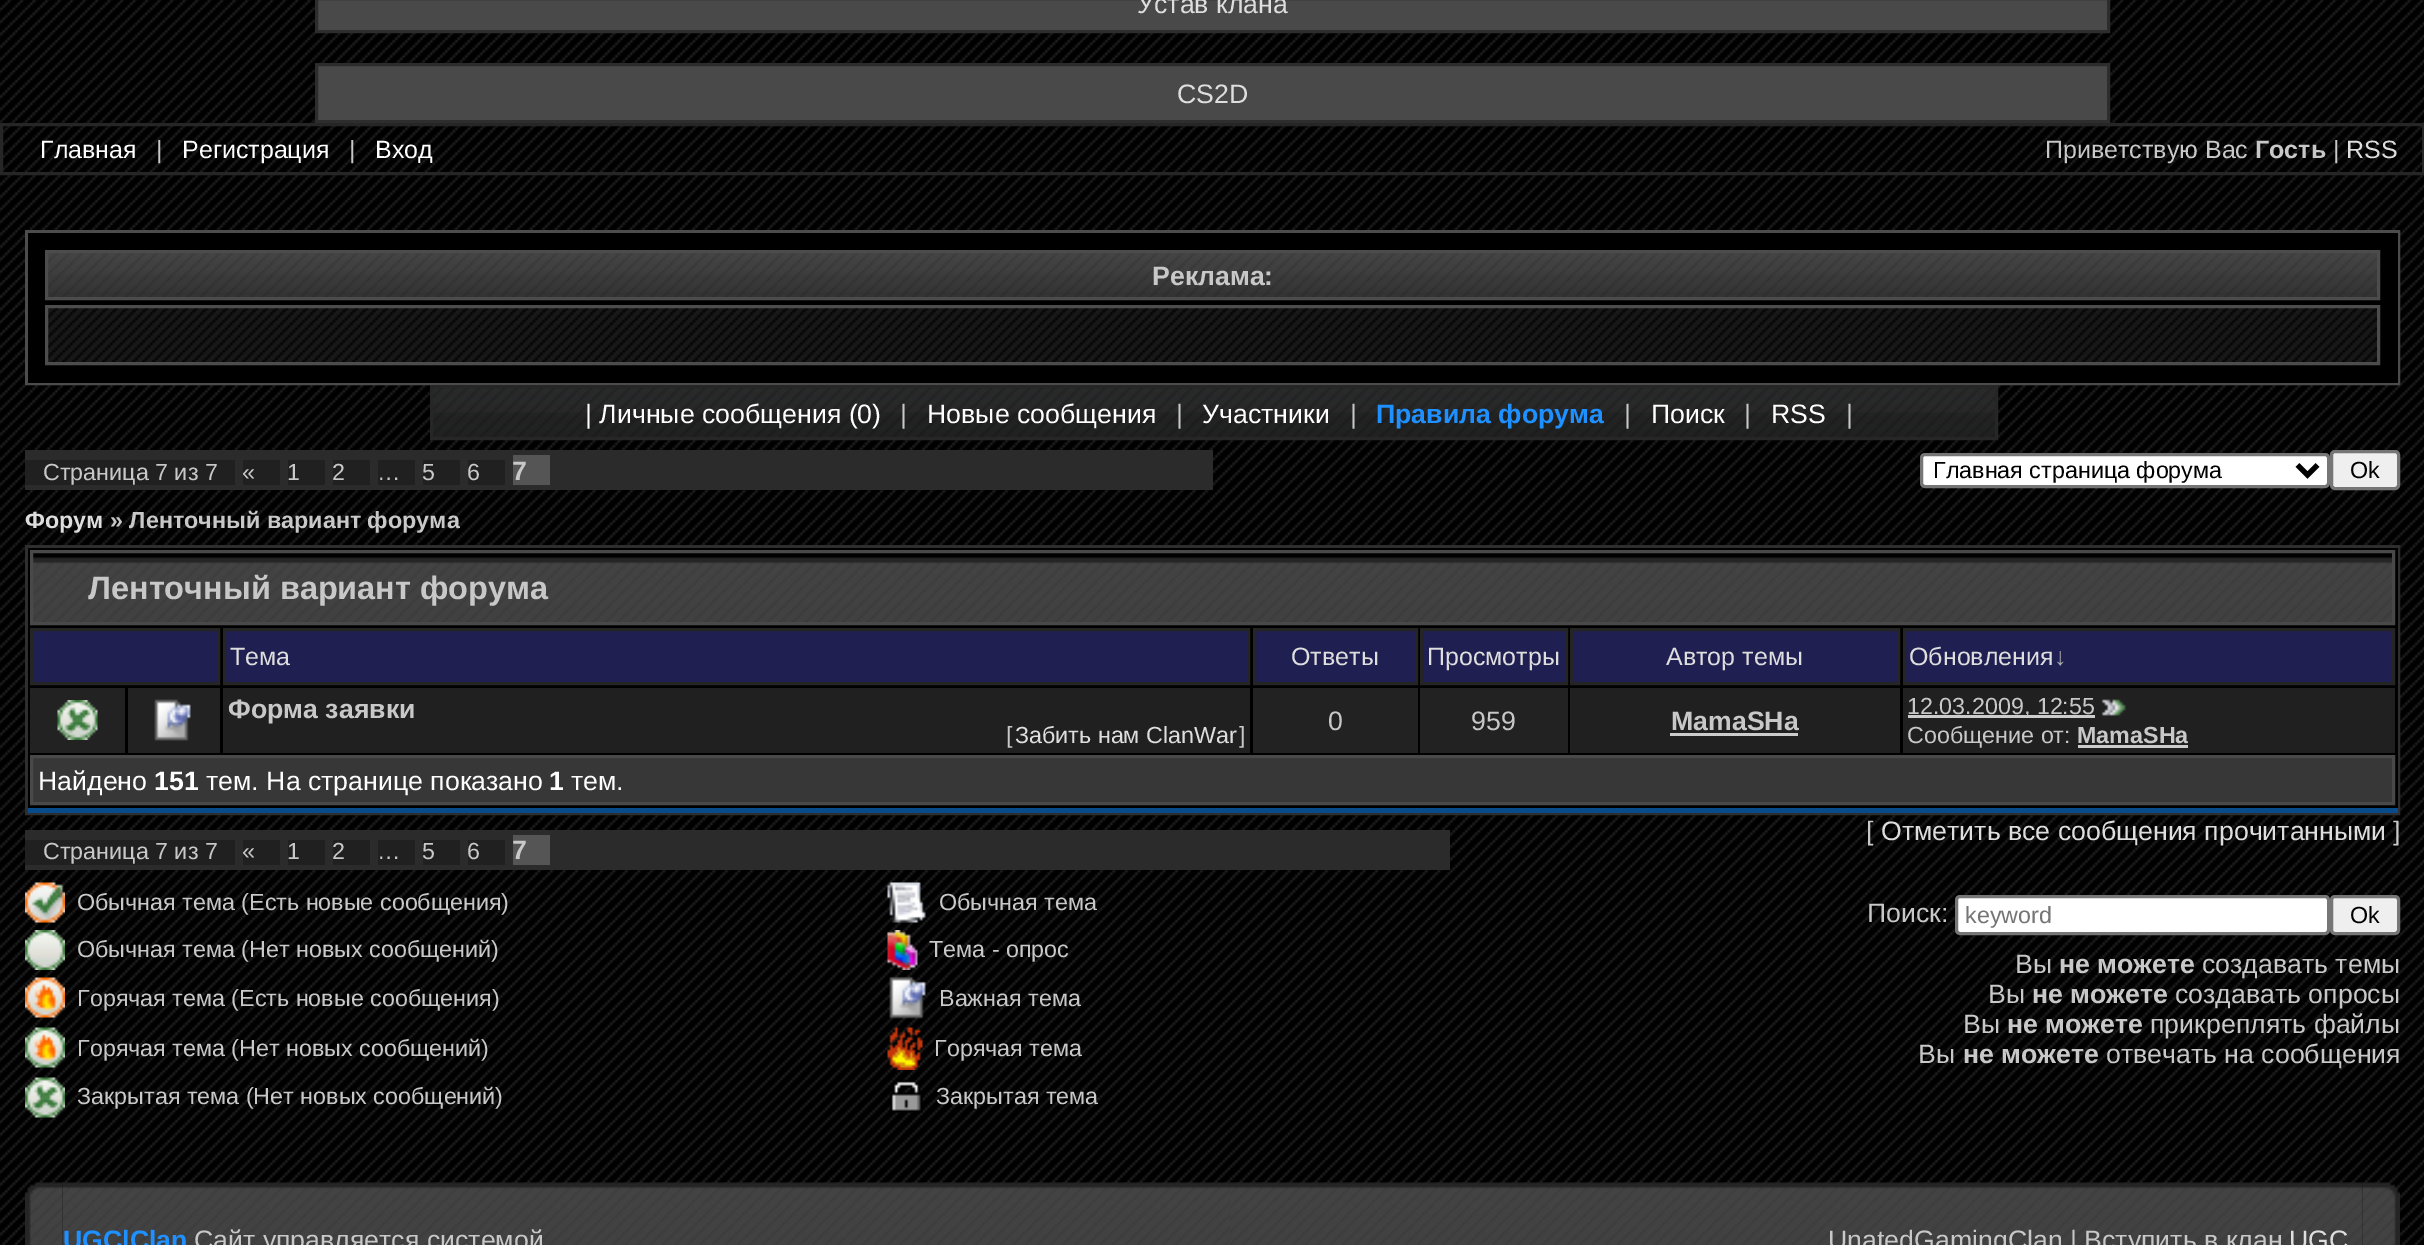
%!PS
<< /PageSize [2424 1245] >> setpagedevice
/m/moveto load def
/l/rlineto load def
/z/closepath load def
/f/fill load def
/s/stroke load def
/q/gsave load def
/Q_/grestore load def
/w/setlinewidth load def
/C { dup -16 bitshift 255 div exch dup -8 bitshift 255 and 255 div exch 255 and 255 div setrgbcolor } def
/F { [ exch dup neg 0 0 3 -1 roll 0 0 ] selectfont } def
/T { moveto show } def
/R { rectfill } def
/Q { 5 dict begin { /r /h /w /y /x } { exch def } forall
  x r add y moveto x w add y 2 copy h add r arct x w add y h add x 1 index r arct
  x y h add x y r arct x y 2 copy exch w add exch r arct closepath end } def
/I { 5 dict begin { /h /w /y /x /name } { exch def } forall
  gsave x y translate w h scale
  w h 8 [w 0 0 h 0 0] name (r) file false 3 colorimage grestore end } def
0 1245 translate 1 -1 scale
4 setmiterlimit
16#FFFFFF C
0 0 2424 1245 R
(1.rgb) 0 0 2424 1245 I
16#494949 C
316.5 -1.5 m 1792 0 l 0 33 l -1792 0 l z q f Q_
16#2D2D2D C
3 w
s
/LiberationSans-Regular 26.7 F
16#DEDEDE C
(Устав клана) 1137 13 T
16#494949 C
316.5 64.5 m 1792 0 l 0 57 l -1792 0 l z q f Q_
16#2D2D2D C
s
16#DEDEDE C
(CS2D) 1177 103 T
16#262626 C
1.5 124.5 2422 49 rectstroke
/LiberationSans-Regular 25 F
16#FFFFFF C
(Главная) 40 158 T
16#C8C8C8 C
(|) 156 158 T
16#FFFFFF C
(Регистрация) 182 158 T
16#C8C8C8 C
(|) 349 158 T
16#FFFFFF C
(Вход) 375 158 T
16#C8C8C8 C
(Приветствую Вас) 2045 158 T
/LiberationSans-Bold 25 F
(Гость) 2255 158 T
/LiberationSans-Regular 25 F
(|) 2333 158 T
16#DEDEDE C
(RSS) 2346 158 T
16#4C4C4C C
26.5 231.5 2372 152 rectstroke
16#000000 C
28 233 2370 150 R
(2.rgb) 48 253 2329 44 I
16#4C4C4C C
46.5 251.5 2332 47 rectstroke
/LiberationSans-Bold 26.7 F
16#C8C8C8 C
(Реклама:) 1152 285 T
(3.rgb) 48 308 2329 54 I
16#4C4C4C C
46.5 306.5 2332 57 rectstroke
(4.rgb) 433 388 1562 49 I
16#262626 C
431.5 386.5 1565 52 rectstroke
/LiberationSans-Regular 26.7 F
16#FFFFFF C
(| Личные сообщения \(0\)) 585 423 T
16#C8C8C8 C
(|) 900 423 T
16#FFFFFF C
(Новые сообщения) 927 423 T
16#C8C8C8 C
(|) 1176 423 T
16#FFFFFF C
(Участники) 1202 423 T
16#C8C8C8 C
(|) 1350 423 T
/LiberationSans-Bold 26.7 F
16#1E90FF C
(Правила форума) 1376 423 T
/LiberationSans-Regular 26.7 F
16#C8C8C8 C
(|) 1624 423 T
16#FFFFFF C
(Поиск) 1651 423 T
16#C8C8C8 C
(|) 1744 423 T
16#FFFFFF C
(RSS) 1771 423 T
16#C8C8C8 C
(|) 1846 423 T
16#2B2B2B C
25 450 1188 40 R
16#202020 C
25 460 210 25 R
/LiberationSans-Regular 23.3 F
16#C8C8C8 C
(Страница 7 из 7) 43 480 T
16#202020 C
243 460 37 25 R
16#C8C8C8 C
(«) 242 480 T
16#202020 C
288 460 37 25 R
16#C8C8C8 C
(1) 287 480 T
16#202020 C
333 460 37 25 R
16#C8C8C8 C
(2) 332 480 T
16#202020 C
378 460 37 25 R
16#C8C8C8 C
(…) 377 480 T
16#202020 C
423 460 37 25 R
16#C8C8C8 C
(5) 422 480 T
16#202020 C
468 460 37 25 R
16#C8C8C8 C
(6) 467 480 T
16#555555 C
513 455 37 30 R
/LiberationSans-Bold 26.7 F
16#C8C8C8 C
(7) 512 480 T
16#FFFFFF C
1921.5 454.5 407 32 3.5 Q q f Q_
16#767676 C
s
16#000000 C
5 w
2297.5 465 m 10 10 l 10 -10 l s
/LiberationSans-Regular 23.3 F
(Главная страница форума) 1933 478 T
16#EFEFEF C
2331.5 451.5 67 37 3.5 Q q f Q_
16#767676 C
3 w
s
16#000000 C
(Ok) 2350 478 T
/LiberationSans-Bold 23.3 F
16#DEDEDE C
(Форум) 25 528 T
16#C8C8C8 C
(» Ленточный вариант форума) 110 528 T
16#2E2E2E C
26.5 546.5 2372 267 rectstroke
16#000000 C
28 548 2370 260 R
16#084B8A C
28 808 2370 5 R
(5.rgb) 33 557 2359 65 I
16#494949 C
31.5 551.5 2362 72 rectstroke
/LiberationSans-Bold 32.5 F
16#C8C8C8 C
(Ленточный вариант форума) 88 599 T
16#1F1F52 C
31.5 629.5 m 187 0 l 0 54 l -187 0 l z q f Q_
16#252525 C
s
16#1F1F52 C
224.5 629.5 m 1024 0 l 0 54 l -1024 0 l z q f Q_
16#252525 C
s
/LiberationSans-Regular 25 F
16#DEDEDE C
(Тема) 230 665 T
16#1F1F52 C
1254.5 629.5 m 162 0 l 0 54 l -162 0 l z q f Q_
16#252525 C
s
16#DEDEDE C
(Ответы) 1291 665 T
16#1F1F52 C
1421.5 629.5 m 145 0 l 0 54 l -145 0 l z q f Q_
16#252525 C
s
16#DEDEDE C
(Просмотры) 1427 665 T
16#1F1F52 C
1571.5 629.5 m 327 0 l 0 54 l -327 0 l z q f Q_
16#252525 C
s
16#DEDEDE C
(Автор темы) 1666 665 T
16#1F1F52 C
1904.5 629.5 m 489 0 l 0 54 l -489 0 l z q f Q_
16#252525 C
s
16#DEDEDE C
(Обновления) 1909 665 T
16#ACACAC C
(↓) 2054 665 T
16#222222 C
30 688 95 65 R
(6.rgb) 57 700 41 40 I
128 688 92 65 R
(7.rgb) 154 699 37 42 I
16#202020 C
223 688 1027 65 R
/LiberationSans-Bold 26.7 F
16#C8C8C8 C
(Форма заявки) 228 718 T
/LiberationSans-Regular 23.3 F
([) 1006 743 T
16#DEDEDE C
(Забить нам ClanWar) 1015 743 T
16#C8C8C8 C
(]) 1239 743 T
16#222222 C
1253 688 165 65 R
/LiberationSans-Regular 26.7 F
16#C8C8C8 C
(0) 1328 730 T
16#222222 C
1420 688 148 65 R
16#C8C8C8 C
(959) 1471 730 T
16#202020 C
1570 688 330 65 R
/LiberationSans-Bold 26.7 F
16#C8C8C8 C
(MamaSHa) 1671 730 T
16#CCCCCC C
1670 733 128 3 R
16#202020 C
1903 688 492 65 R
16#CCCCCC C
1908 715 187 3 R
/LiberationSans-Regular 23.3 F
16#C8C8C8 C
(12.03.2009, 12:55) 1907 714 T
(8.rgb) 2101 699 25 17 I
(Сообщение от:) 1907 743 T
/LiberationSans-Bold 23.3 F
(MamaSHa) 2077 743 T
16#CCCCCC C
2078 745 110 3 R
16#373737 C
31.5 756.5 m 2362 0 l 0 47 l -2362 0 l z q f Q_
16#494949 C
s
/LiberationSans-Regular 26.7 F
16#FFFFFF C
(Найдено) 38 790 T
/LiberationSans-Bold 26.7 F
(151) 154 790 T
/LiberationSans-Regular 26.7 F
(тем. На странице показано) 206 790 T
/LiberationSans-Bold 26.7 F
(1) 549 790 T
/LiberationSans-Regular 26.7 F
(тем.) 571 790 T
16#C8C8C8 C
([) 1866 840 T
16#DEDEDE C
(Отметить все сообщения прочитанными) 1881 840 T
16#C8C8C8 C
(]) 2393 840 T
16#2B2B2B C
25 830 1425 40 R
16#202020 C
25 840 210 25 R
/LiberationSans-Regular 23.3 F
16#C8C8C8 C
(Страница 7 из 7) 43 859 T
16#202020 C
243 840 37 25 R
16#C8C8C8 C
(«) 242 859 T
16#202020 C
288 840 37 25 R
16#C8C8C8 C
(1) 287 859 T
16#202020 C
333 840 37 25 R
16#C8C8C8 C
(2) 332 859 T
16#202020 C
378 840 37 25 R
16#C8C8C8 C
(…) 377 859 T
16#202020 C
423 840 37 25 R
16#C8C8C8 C
(5) 422 859 T
16#202020 C
468 840 37 25 R
16#C8C8C8 C
(6) 467 859 T
16#555555 C
513 835 37 30 R
/LiberationSans-Bold 26.7 F
16#C8C8C8 C
(7) 512 859 T
(9.rgb) 25 882 40 41 I
/LiberationSans-Regular 23.3 F
(Обычная тема \(Есть новые сообщения\)) 77 910 T
(10.rgb) 887 882 39 41 I
(Обычная тема) 939 910 T
(11.rgb) 25 930 40 40 I
(Обычная тема \(Нет новых сообщений\)) 77 957 T
(12.rgb) 887 930 31 40 I
(Тема - опрос) 929 957 T
(13.rgb) 25 977 40 41 I
(Горячая тема \(Есть новые сообщения\)) 77 1006 T
(14.rgb) 889 976 37 43 I
(Важная тема) 939 1006 T
(15.rgb) 25 1027 40 41 I
(Горячая тема \(Нет новых сообщений\)) 77 1056 T
(16.rgb) 887 1027 36 43 I
(Горячая тема) 934 1056 T
(17.rgb) 25 1077 40 41 I
(Закрытая тема \(Нет новых сообщений\)) 77 1104 T
(18.rgb) 889 1079 34 34 I
(Закрытая тема) 936 1104 T
/LiberationSans-Regular 26.7 F
(Поиск:) 1867 922 T
16#FFFFFF C
1956.5 896.5 372 37 3.5 Q q f Q_
16#767676 C
s
/LiberationSans-Regular 23.3 F
16#757575 C
(keyword) 1965 923 T
16#EFEFEF C
2331.5 896.5 67 37 3.5 Q q f Q_
16#767676 C
s
16#000000 C
(Ok) 2350 923 T
/LiberationSans-Regular 26.7 F
16#C8C8C8 C
(Вы) 2015 973 T
/LiberationSans-Bold 26.7 F
(не можете) 2059 973 T
/LiberationSans-Regular 26.7 F
(создавать темы) 2202 973 T
(Вы) 1988 1003 T
/LiberationSans-Bold 26.7 F
(не можете) 2032 1003 T
/LiberationSans-Regular 26.7 F
(создавать опросы) 2175 1003 T
(Вы) 1963 1033 T
/LiberationSans-Bold 26.7 F
(не можете) 2007 1033 T
/LiberationSans-Regular 26.7 F
(прикреплять файлы) 2150 1033 T
(Вы) 1918 1063 T
/LiberationSans-Bold 26.7 F
(не можете) 1963 1063 T
/LiberationSans-Regular 26.7 F
(отвечать на сообщения) 2106 1063 T
(20.rgb) 62 1182 1168 63 I
(19.rgb) 25 1182 38 63 I
/LiberationSans-Bold 26.7 F
16#1E90FF C
(UGC|Clan) 63 1249 T
/LiberationSans-Regular 26.7 F
16#C8C8C8 C
(Сайт управляется системой) 194 1249 T
(21.rgb) 1230 1182 1133 63 I
(UnatedGamingClan | Вступить в клан) 1828 1249 T
16#DEDEDE C
(UGC) 2289 1249 T
(22.rgb) 2362 1182 38 63 I
showpage
